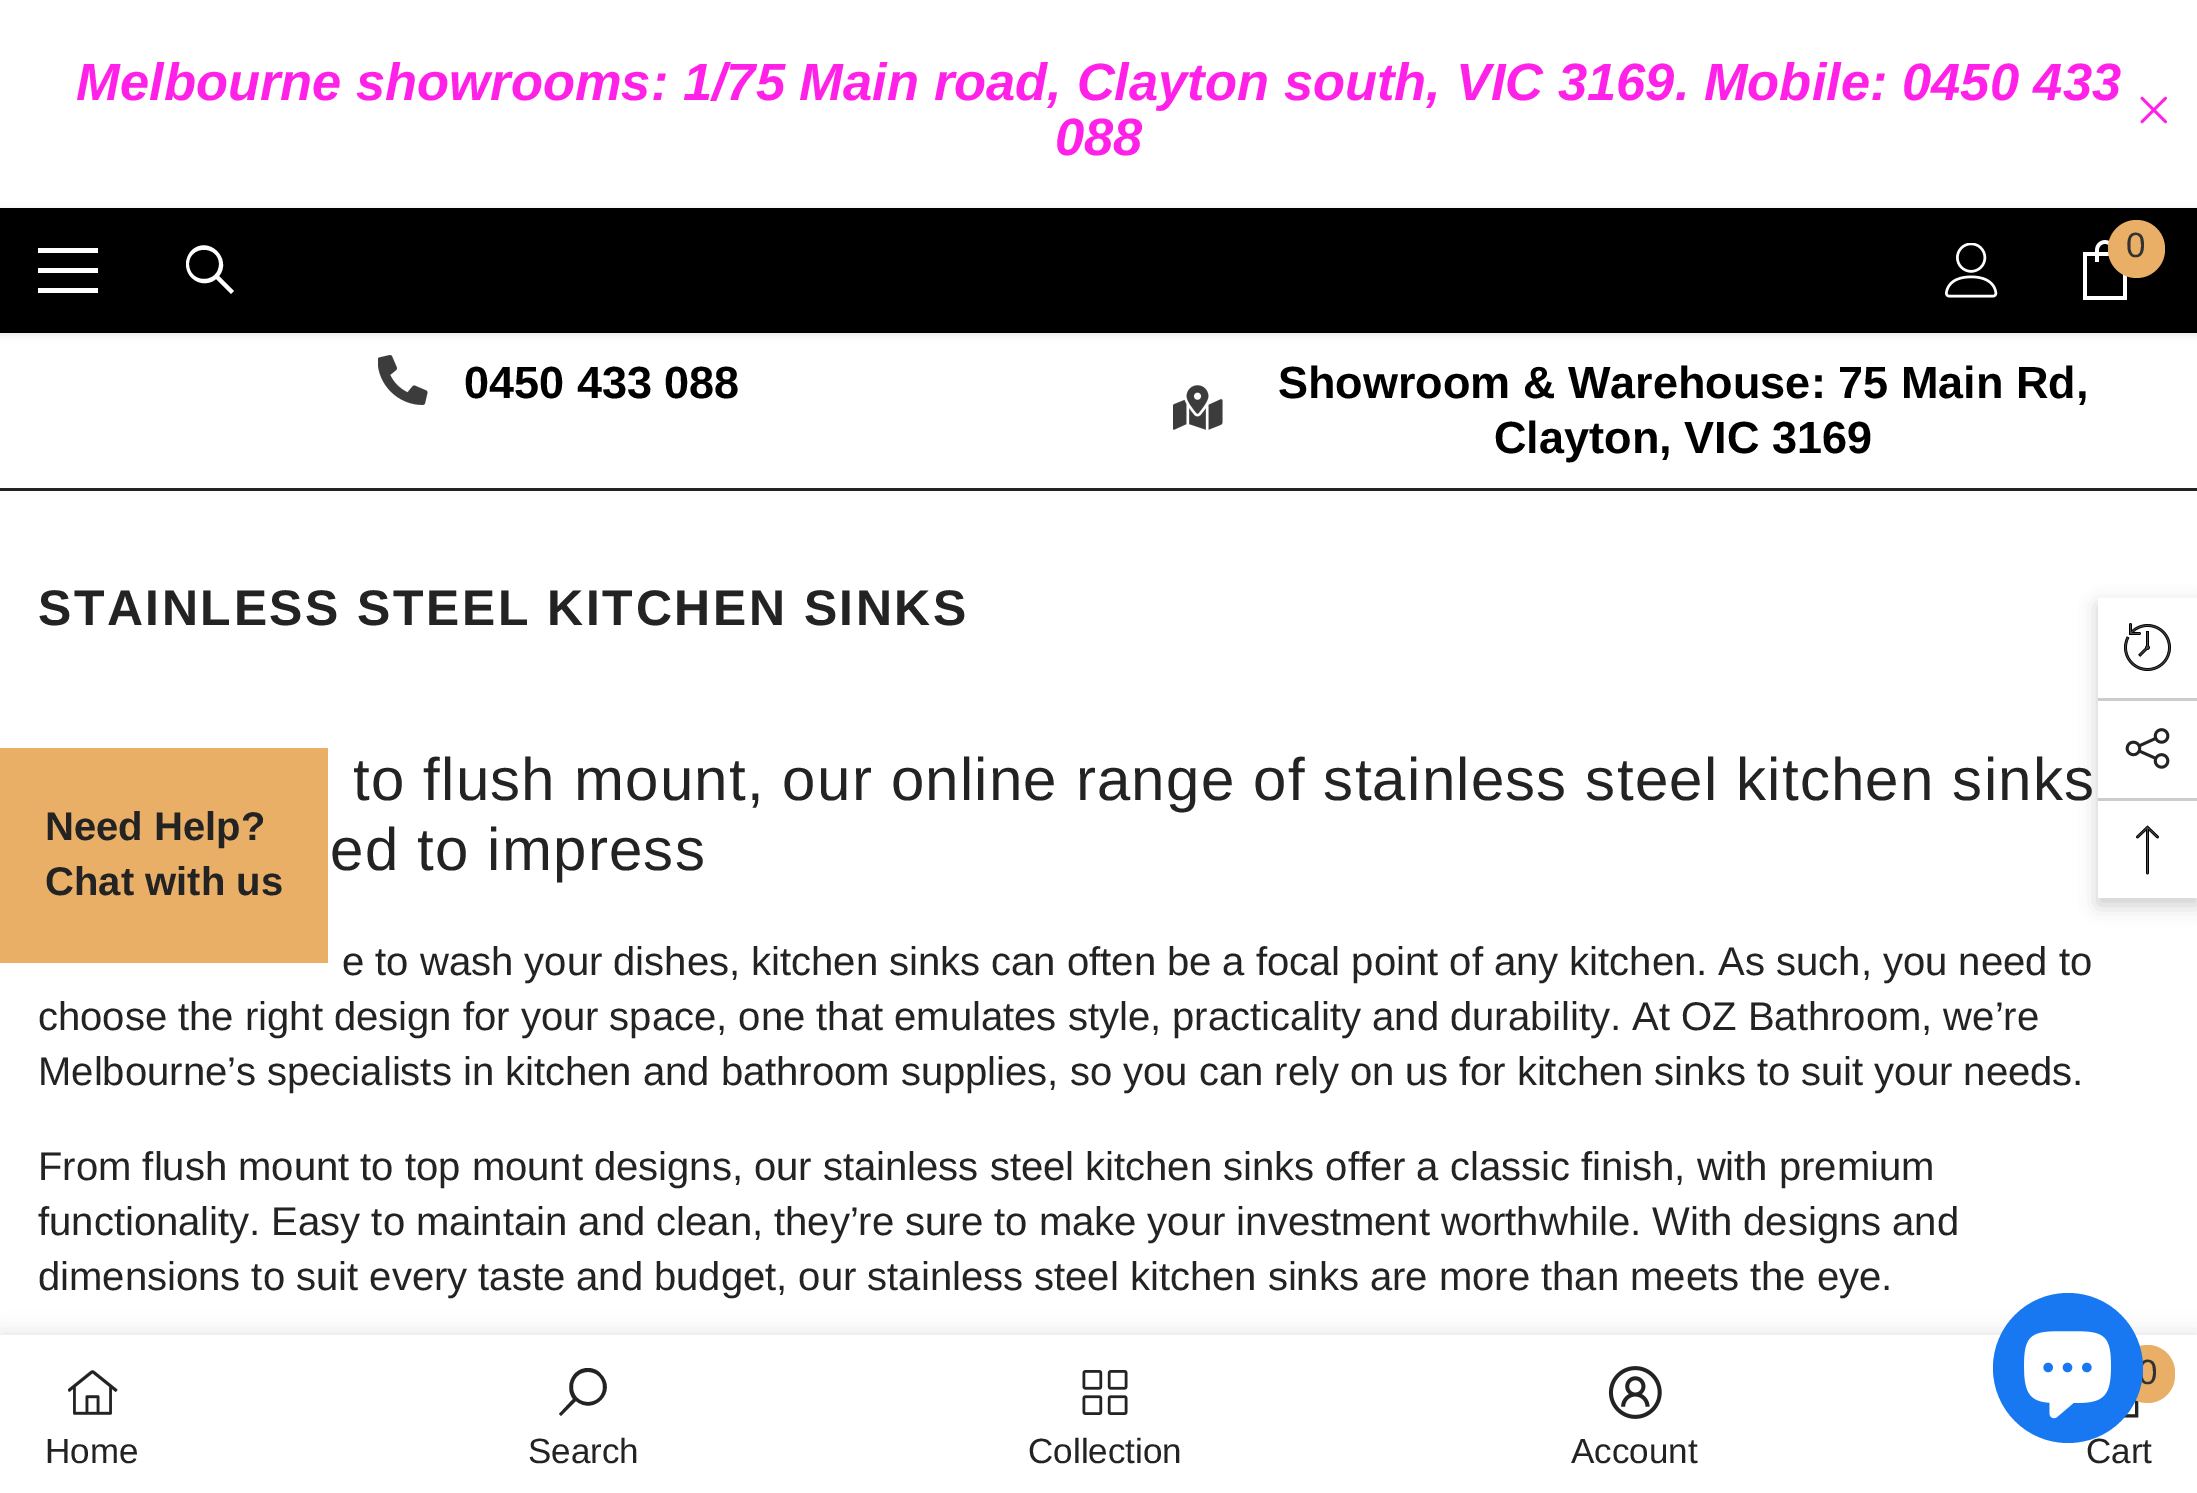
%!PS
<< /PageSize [2197 1493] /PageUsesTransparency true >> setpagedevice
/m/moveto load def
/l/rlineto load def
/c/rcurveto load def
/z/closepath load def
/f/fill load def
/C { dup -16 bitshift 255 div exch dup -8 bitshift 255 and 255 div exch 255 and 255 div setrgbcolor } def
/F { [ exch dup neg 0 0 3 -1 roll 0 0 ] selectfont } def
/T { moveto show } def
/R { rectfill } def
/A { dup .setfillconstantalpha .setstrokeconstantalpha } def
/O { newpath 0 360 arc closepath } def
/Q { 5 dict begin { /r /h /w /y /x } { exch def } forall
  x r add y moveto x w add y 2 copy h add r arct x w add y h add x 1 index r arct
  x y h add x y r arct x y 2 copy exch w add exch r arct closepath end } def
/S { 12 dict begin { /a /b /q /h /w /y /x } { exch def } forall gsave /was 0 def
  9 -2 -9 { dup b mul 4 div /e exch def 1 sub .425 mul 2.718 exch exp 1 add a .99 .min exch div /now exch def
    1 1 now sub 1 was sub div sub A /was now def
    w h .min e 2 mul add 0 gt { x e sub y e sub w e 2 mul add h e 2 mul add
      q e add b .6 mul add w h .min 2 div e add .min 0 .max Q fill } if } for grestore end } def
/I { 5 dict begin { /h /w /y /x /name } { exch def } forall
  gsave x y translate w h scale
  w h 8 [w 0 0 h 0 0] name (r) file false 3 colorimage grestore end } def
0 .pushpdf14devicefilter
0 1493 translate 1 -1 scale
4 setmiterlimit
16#FFFFFF C
0 0 2197 1493 R
/LiberationSans-BoldItalic 52.5 F
16#FF21E7 C
(Melbourne showrooms: 1/75 Main road, Clayton south, VIC 3169. Mobile: 0450 433) 76 100 T
(088) 1055 155 T
(1.rgb) 2140 96 27 28 I
16#000000 C
0 210 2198 125 0 4 .1 S
0 208 2197 125 R
16#FFFFFF C
38 268 60 5 R
38 248 60 5 R
38 288 60 5 R
186 264 m 0 16 18 25 30 15 c 15 15 l 3 -3 l -15 -15 l 14 -17 -11 -42 -28 -25 c -3 4 -5 8 -5 13 c z 189 264 m 0 -19 30 -19 30 0 c 0 20 -30 20 -30 0 c z f
(2.rgb) 1945 243 53 55 I
(3.rgb) 2083 240 44 60 I
16#EAAF66 C
2108 220 57 58 28.5 Q f
/LiberationSans-Regular 35 F
16#323232 C
(0) 2126 257 T
16#232323 C
0 488 2197 3 R
(4.rgb) 378 355 50 50 I
/LiberationSans-Bold 45 F
16#000000 C
(0450 433 088) 464 398 T
(5.rgb) 1173 385 50 45 I
(Showroom & Warehouse: 75 Main Rd,) 1278 398 T
(Clayton, VIC 3169) 1494 453 T
/LiberationSans-Bold 50 F
16#232323 C
38 625 m 2.5 0 (STAINLESS STEEL KITCHEN SINKS) ashow
/LiberationSans-Regular 60 F
353 800 m 1.2 0 (to flush mount, our online range of stainless steel kitchen sinks) ashow
330 870 m 1.2 0 (ed to impress) ashow
/LiberationSans-Regular 40 F
(e to wash your dishes, kitchen sinks can often be a focal point of any kitchen. As such, you need to) 342 975 T
(choose the right design for your space, one that emulates style, practicality and durability. At OZ Bathroom, we’re) 38 1030 T
(Melbourne’s specialists in kitchen and bathroom supplies, so you can rely on us for kitchen sinks to suit your needs.) 38 1085 T
(From flush mount to top mount designs, our stainless steel kitchen sinks offer a classic finish, with premium) 38 1180 T
(functionality. Easy to maintain and clean, they’re sure to make your investment worthwhile. With designs and) 38 1235 T
(dimensions to suit every taste and budget, our stainless steel kitchen sinks are more than meets the eye.) 38 1290 T
16#000000 C
0 1335 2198 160 0 11 .12 S
16#FFFFFF C
0 1335 2197 158 R
(6.rgb) 68 1370 50 45 I
/LiberationSans-Regular 35 F
16#232323 C
(Home) 45 1463 T
588 1368 m -16 0 -24 19 -15 31 c -14 15 l 2 2 l 15 -15 l 18 15 42 -10 25 -27 c -3 -4 -8 -6 -13 -6 c z 588 1372 m 20 0 20 30 0 30 c -20 0 -20 -30 0 -30 c z f
(Search) 528 1463 T
(7.rgb) 1082 1370 46 45 I
(Collection) 1028 1463 T
(8.rgb) 1608 1366 54 53 I
(Account) 1571 1463 T
(9.rgb) 2123 1400 16 18 I
16#EAAF66 C
2120 1345 55 58 27.5 Q f
16#323232 C
(0) 2138 1384 T
16#232323 C
(Cart) 2086 1463 T
16#EAAF66 C
0 748 328 215 R
/LiberationSans-Bold 40 F
16#232323 C
(Need Help?) 45 840 T
(Chat with us) 45 895 T
16#000000 C
2098 605 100 300 0 9 .2 S
16#FFFFFF C
2098 598 99 300 R
(10.rgb) 2124 623 47 48 I
16#CCCCCC C
2098 698 99 3 R
(11.rgb) 2125 728 45 41 I
2098 798 99 3 R
(12.rgb) 2136 825 23 50 I
16#1778F2 C
2068 1368 75 O f
(13.rgb) 2024 1331 87 88 I
.poppdf14devicefilter showpage
